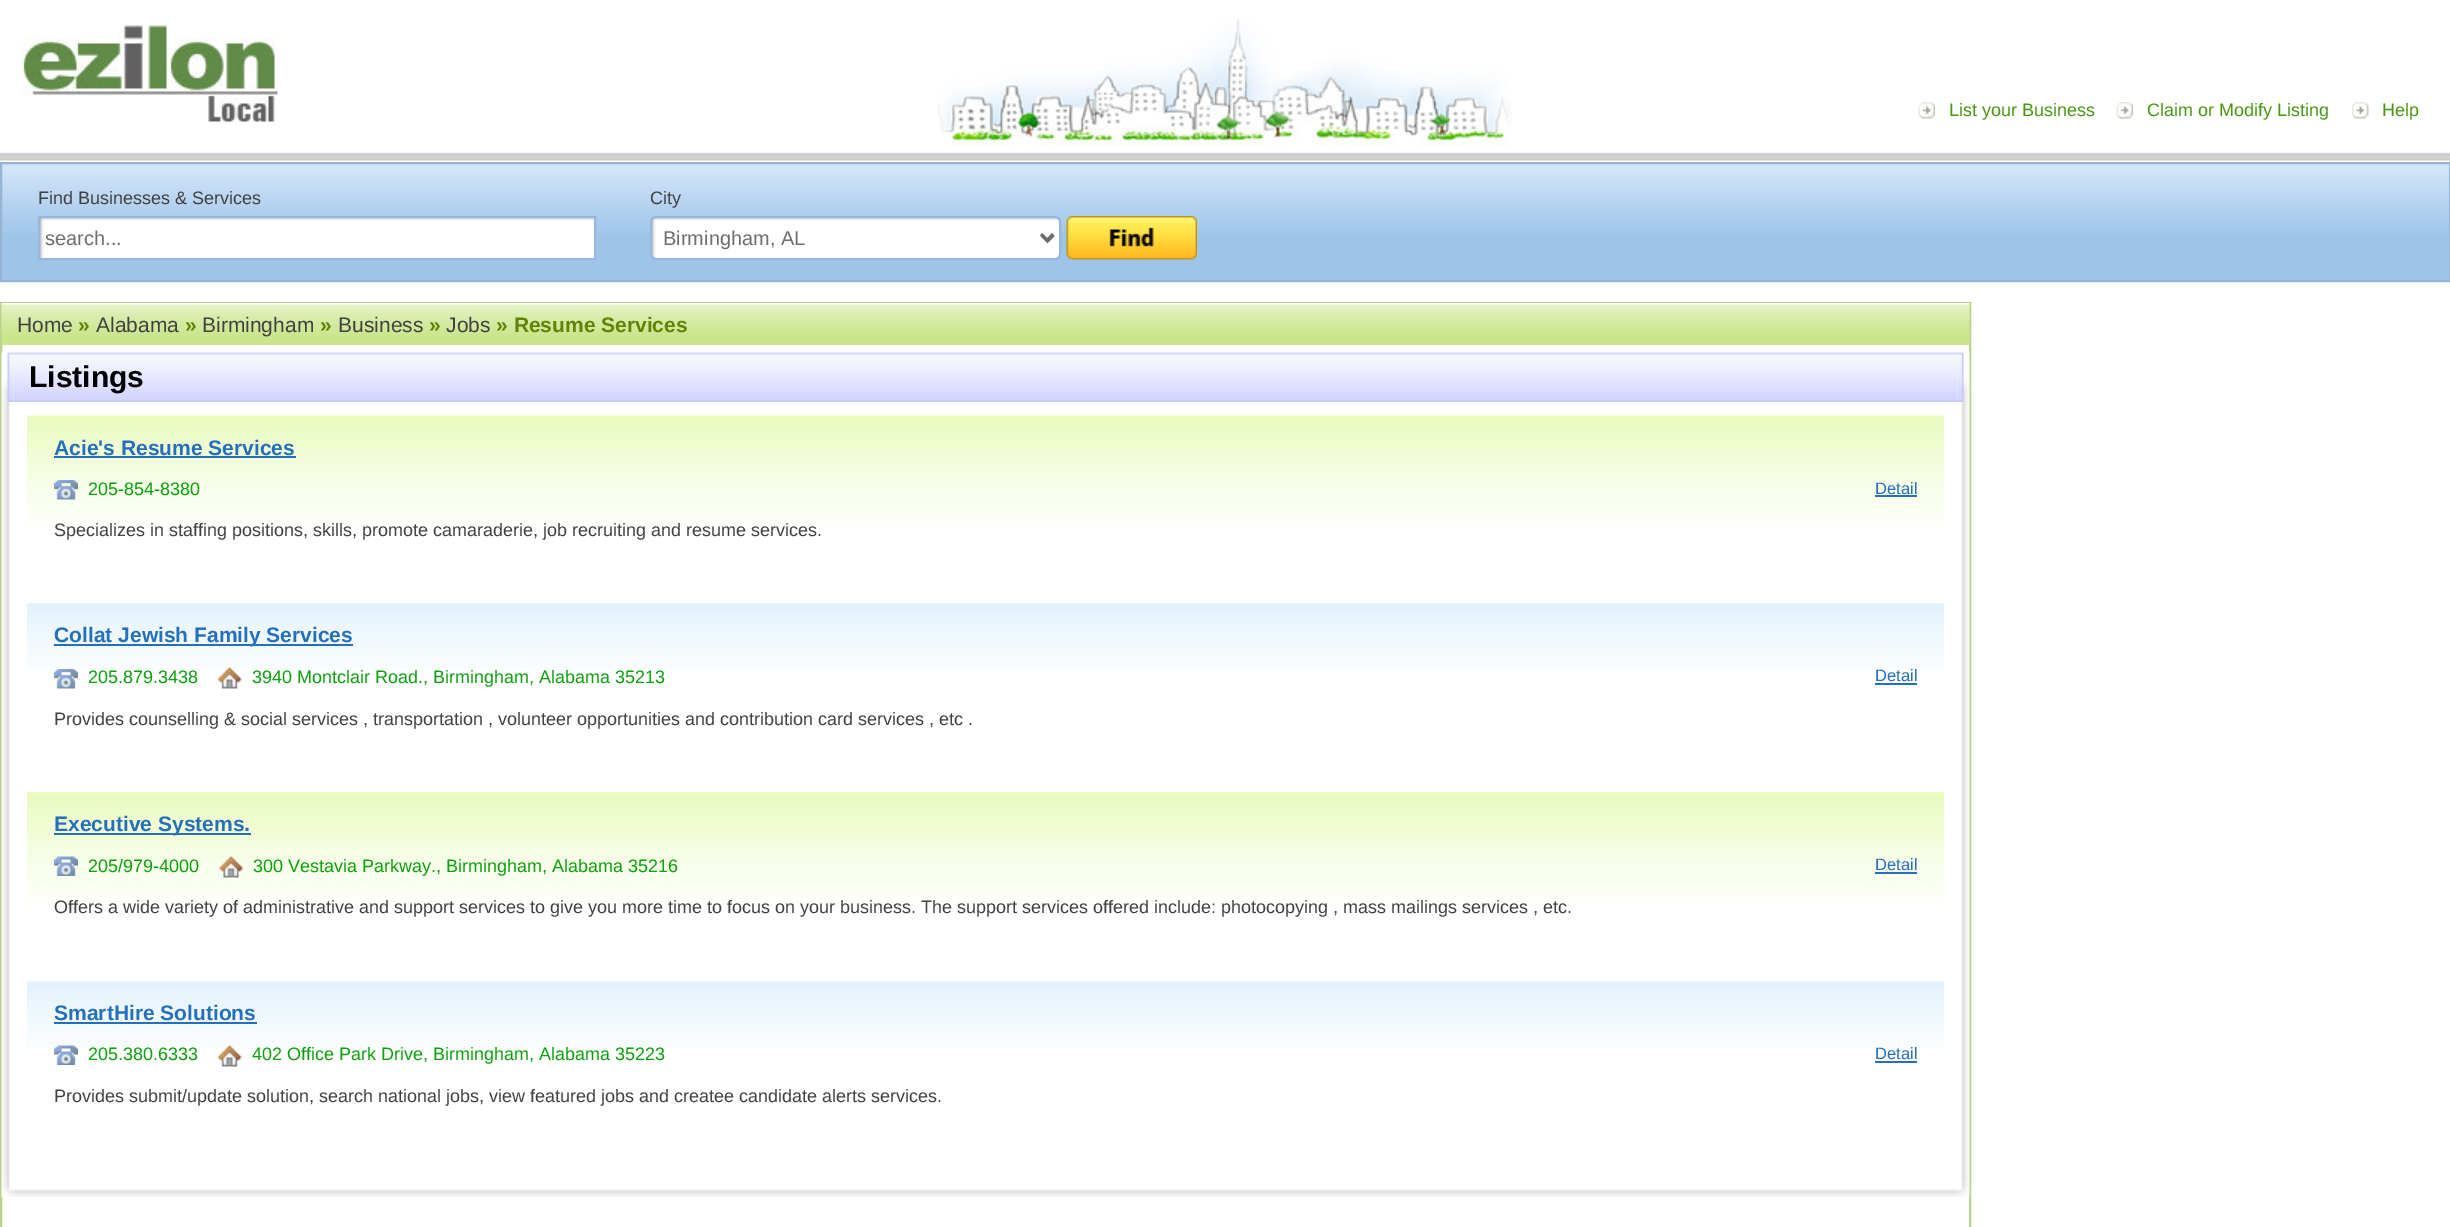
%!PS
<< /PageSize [2450 1227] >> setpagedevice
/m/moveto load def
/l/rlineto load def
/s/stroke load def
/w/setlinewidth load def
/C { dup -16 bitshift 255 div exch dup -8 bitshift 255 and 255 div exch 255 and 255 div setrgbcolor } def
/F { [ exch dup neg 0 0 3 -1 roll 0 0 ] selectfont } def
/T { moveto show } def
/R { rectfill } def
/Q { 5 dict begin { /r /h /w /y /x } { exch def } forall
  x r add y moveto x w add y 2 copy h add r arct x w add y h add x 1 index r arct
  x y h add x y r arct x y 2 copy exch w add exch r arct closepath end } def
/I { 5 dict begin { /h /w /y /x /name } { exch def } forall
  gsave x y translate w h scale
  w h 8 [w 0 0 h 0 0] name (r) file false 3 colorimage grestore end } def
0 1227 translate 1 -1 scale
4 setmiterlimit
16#FFFFFF C
0 0 2450 1227 R
(1.rgb) 0 152 2450 9 I
(2.rgb) 937 17 575 132 I
(3.rgb) 22 24 256 98 I
(4.rgb) 1918 102 17 17 I
/LiberationSans-Regular 18 F
16#479811 C
(List your Business) 1949 116 T
(4.rgb) 2116 102 17 17 I
(Claim or Modify Listing) 2147 116 T
(5.rgb) 2352 102 17 17 I
(Help) 2382 116 T
16#9FC4E9 C
2 233 2447 47 R
(6.rgb) 2 164 2447 69 I
16#97B4D2 C
2 w
1 163 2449 118 rectstroke
16#414141 C
(Find Businesses & Services) 38 204 T
(7.rgb) 40 218 554 40 I
16#97B6E0 C
39 217 556 42 rectstroke
/LiberationSans-Regular 20 F
16#6E6E6E C
(search...) 45 245 T
/LiberationSans-Regular 18 F
16#414141 C
(City) 650 204 T
(8.rgb) 651 217 410 43 I
16#97B6E0 C
651 217 409 42 5 Q s
16#6E6E6E C
3 w
1041.5 235 m 6 6 l 6 -6 l s
/LiberationSans-Regular 20 F
(Birmingham, AL) 663 245 T
(9.rgb) 1066 216 131 44 I
16#BDD18E C
2 w
1 303 1969 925 rectstroke
(10.rgb) 1 303 1969 42 I
/LiberationSans-Regular 21 F
16#414141 C
(Home) 17 332 T
/LiberationSans-Bold 21 F
16#618407 C
(») 78 332 T
/LiberationSans-Regular 21 F
16#414141 C
(Alabama) 96 332 T
/LiberationSans-Bold 21 F
16#618407 C
(») 185 332 T
/LiberationSans-Regular 21 F
16#414141 C
(Birmingham) 202 332 T
/LiberationSans-Bold 21 F
16#618407 C
(») 320 332 T
/LiberationSans-Regular 21 F
16#414141 C
(Business) 338 332 T
/LiberationSans-Bold 21 F
16#618407 C
(») 429 332 T
/LiberationSans-Regular 21 F
16#414141 C
(Jobs) 446 332 T
/LiberationSans-Bold 21 F
16#618407 C
(» Resume Services) 496 332 T
(12.rgb) 13 352 1945 50 I
(11.rgb) 1 352 13 50 I
/LiberationSans-Bold 30 F
16#000000 C
(Listings) 29 387 T
(13.rgb) 1957 352 13 50 I
(14.rgb) 1 402 9 782 I
(15.rgb) 27 415 1917 113 I
/LiberationSans-Bold 21 F
16#2470BD C
(Acie's Resume Services) 54 455 T
54 456 242 2 R
(16.rgb) 54 480 24 20 I
/LiberationSans-Regular 18 F
16#0AA10A C
(205-854-8380) 88 495 T
/LiberationSans-Regular 16.5 F
16#2470BD C
(Detail) 1875 494 T
1875 495 42 2 R
/LiberationSans-Regular 18 F
16#414141 C
(Specializes in staffing positions, skills, promote camaraderie, job recruiting and resume services.) 54 536 T
(17.rgb) 27 603 1917 67 I
16#2470BD C
54 644 299 2 R
/LiberationSans-Bold 21 F
(Collat Jewish Family Services) 54 642 T
(18.rgb) 54 669 24 20 I
/LiberationSans-Regular 18 F
16#0AA10A C
(205.879.3438) 88 683 T
(19.rgb) 217 667 25 22 I
(3940 Montclair Road., Birmingham, Alabama 35213) 252 683 T
/LiberationSans-Regular 16.5 F
16#2470BD C
(Detail) 1875 681 T
1875 683 42 2 R
/LiberationSans-Regular 18 F
16#414141 C
(Provides counselling & social services , transportation , volunteer opportunities and contribution card services , etc .) 54 725 T
(20.rgb) 27 792 1917 112 I
16#2470BD C
54 833 197 2 R
/LiberationSans-Bold 21 F
(Executive Systems.) 54 831 T
(21.rgb) 54 856 24 20 I
/LiberationSans-Regular 18 F
16#0AA10A C
(205/979-4000) 88 872 T
(22.rgb) 219 856 24 22 I
(300 Vestavia Parkway., Birmingham, Alabama 35216) 253 872 T
/LiberationSans-Regular 16.5 F
16#2470BD C
(Detail) 1875 870 T
1875 872 42 2 R
/LiberationSans-Regular 18 F
16#414141 C
(Offers a wide variety of administrative and support services to give you more time to focus on your business. The support services offered include: photocopying , mass mailings services , etc.) 54 913 T
(23.rgb) 27 981 1917 67 I
/LiberationSans-Bold 21 F
16#2470BD C
(SmartHire Solutions) 54 1020 T
54 1022 203 2 R
(24.rgb) 54 1045 24 20 I
/LiberationSans-Regular 18 F
16#0AA10A C
(205.380.6333) 88 1060 T
(19.rgb) 217 1045 25 22 I
(402 Office Park Drive, Birmingham, Alabama 35223) 252 1060 T
/LiberationSans-Regular 16.5 F
16#2470BD C
(Detail) 1875 1059 T
1875 1061 42 2 R
/LiberationSans-Regular 18 F
16#414141 C
(Provides submit/update solution, search national jobs, view featured jobs and createe candidate alerts services.) 54 1102 T
(25.rgb) 1961 402 9 782 I
(27.rgb) 13 1189 1945 8 I
(26.rgb) 1 1183 13 14 I
(28.rgb) 1957 1183 13 14 I
showpage
